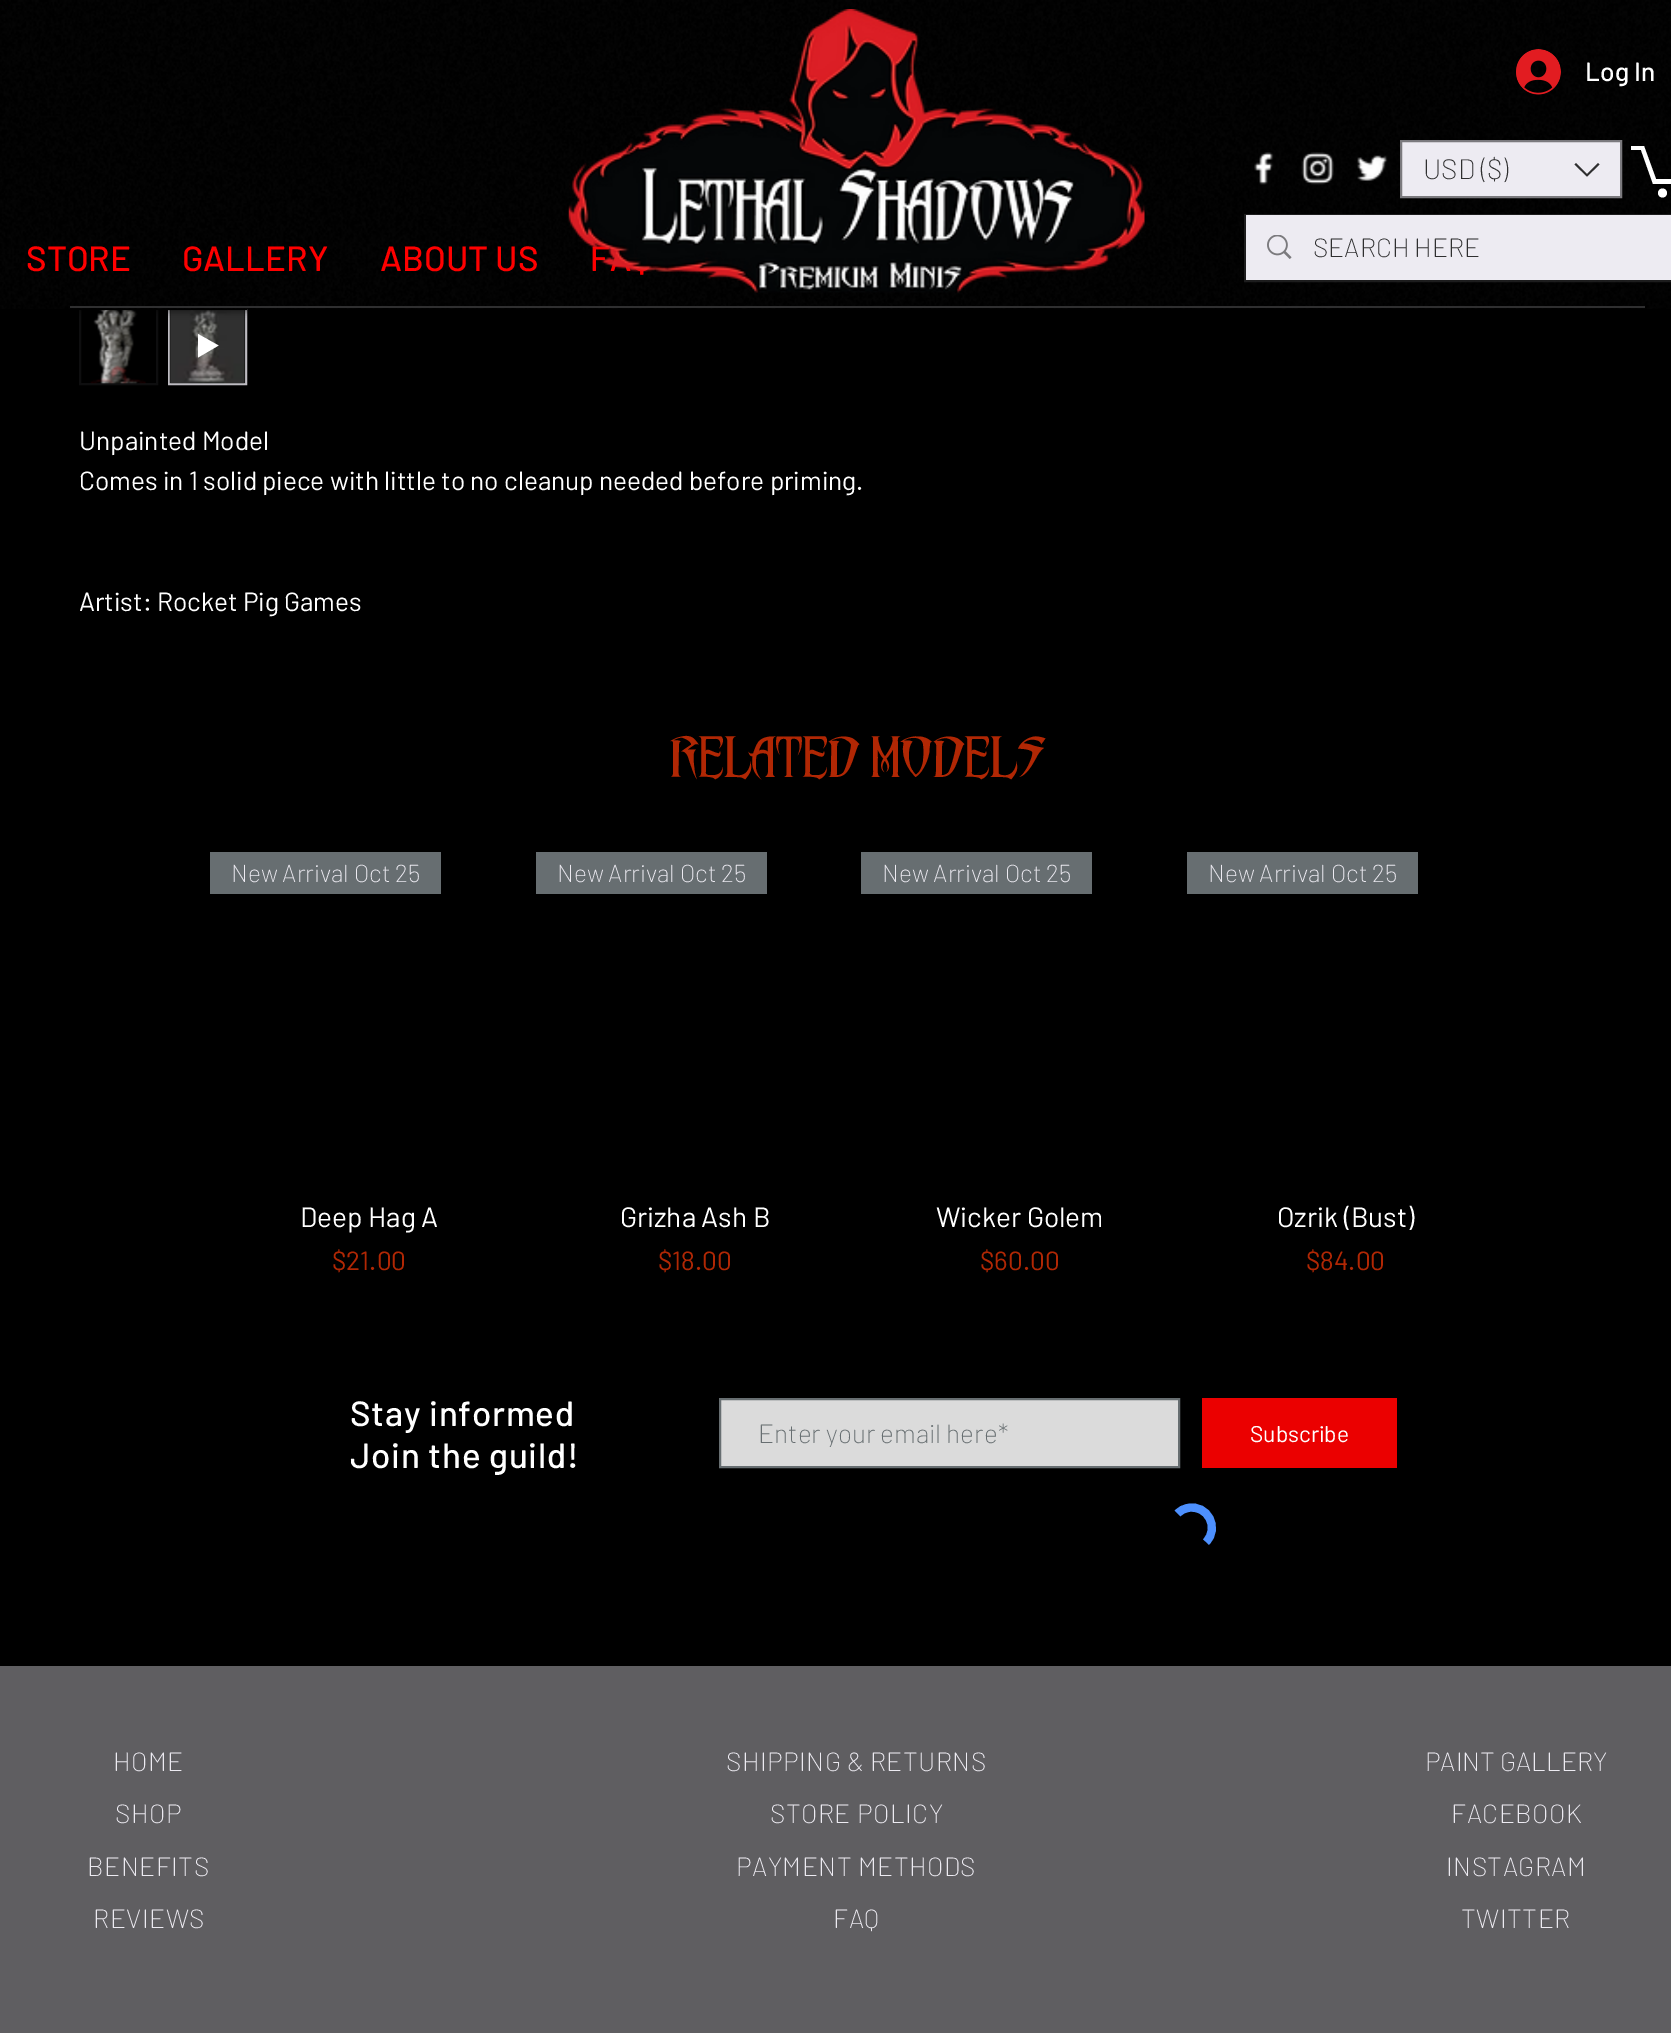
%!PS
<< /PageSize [1671 2033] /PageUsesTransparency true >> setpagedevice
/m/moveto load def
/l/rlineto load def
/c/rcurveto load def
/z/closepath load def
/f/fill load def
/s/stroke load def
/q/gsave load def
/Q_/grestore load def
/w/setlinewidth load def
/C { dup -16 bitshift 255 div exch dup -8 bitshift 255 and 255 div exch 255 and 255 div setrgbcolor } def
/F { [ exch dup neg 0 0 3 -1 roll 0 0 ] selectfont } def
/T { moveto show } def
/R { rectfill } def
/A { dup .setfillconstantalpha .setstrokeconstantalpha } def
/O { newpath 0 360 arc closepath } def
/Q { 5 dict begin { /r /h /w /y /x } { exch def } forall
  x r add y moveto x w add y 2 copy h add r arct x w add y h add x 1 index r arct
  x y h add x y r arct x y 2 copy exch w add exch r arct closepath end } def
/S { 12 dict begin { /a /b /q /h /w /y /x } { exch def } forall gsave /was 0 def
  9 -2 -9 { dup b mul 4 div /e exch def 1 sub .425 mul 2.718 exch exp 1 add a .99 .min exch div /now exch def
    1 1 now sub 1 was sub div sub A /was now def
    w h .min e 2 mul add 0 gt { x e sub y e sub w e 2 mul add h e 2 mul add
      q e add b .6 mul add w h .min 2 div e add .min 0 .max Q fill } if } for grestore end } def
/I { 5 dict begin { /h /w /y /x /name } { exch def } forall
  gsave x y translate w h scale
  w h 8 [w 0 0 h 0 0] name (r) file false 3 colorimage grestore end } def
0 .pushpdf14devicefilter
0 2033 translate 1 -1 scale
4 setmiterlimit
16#000000 C
0 0 1671 2033 R
16#0E0E0F C
2 w
80 307 77 77 rectstroke
(8.rgb) 90 310 56 74 I
16#BEBCC2 C
169 307 77 77 rectstroke
(9.rgb) 169 310 77 74 I
16#000000 C
0 0 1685 310 0 4.5 .7 S
79 306 168 4 R
(1.rgb) 0 0 1671 309 I
/Barlow-Medium 35 F
16#FF0000 C
(STORE) 26 271 T
(GALLERY) 182 271 T
(ABOUT US) 380 271 T
(F) 590 271 T
(2.rgb) 568 9 577 284 I
(3.rgb) 1516 49 45 46 I
/Barlow-Medium 26.25 F
16#FFFFFF C
(Log In) 1585 81 T
(4.rgb) 1254 152 20 33 I
(5.rgb) 1301 152 33 33 I
(6.rgb) 1357 155 31 26 I
16#EDEBF2 C
1401 141 m 220 0 l 0 56 l -220 0 l z q f Q_
16#7B7A7E C
s
/Barlow-ExtraLight 28 F
16#2F2F30 C
(USD \($\)) 1423 179 T
1598 163 m 1.5 1.5 l -12.5 12 l -12.5 -12 l 1.5 -1.5 l 11 11 l z eofill
16#FFFFFF C
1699 159 m -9 25 l -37 0 l -12 -34 l -10 0 l 0 -4 l 13 0 l 12 33 l 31 0 l 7 -20 l f
1662.5 193 4.5 O f
0.6 A
16#2F2F30 C
1245 215 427 66 rectstroke
1 A
16#EDEBF2 C
1246 215 425 65 R
(7.rgb) 1267 235 25 24 I
/Barlow-ExtraLight 26.25 F
16#2F2F30 C
(SEARCH HERE) 1313 257 T
70 306 1575 2 R
16#FFFFFF C
198 334 m 0 23.5 l 20.5 -12 l z f
/Barlow-Regular 26.25 F
(Unpainted Model) 79 450 T
(Comes in 1 solid piece with little to no cleanup needed before priming.) 79 490 T
(Artist: Rocket Pig Games) 79 611 T
/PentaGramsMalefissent-Regular 49 F
16#B12704 C
(RELATED) 670 777 T
(MODELS) 871 777 T
16#676E71 C
210 852 231 42 R
/Barlow-ExtraLight 24.5 F
16#EDEBF2 C
(New Arrival Oct 25) 231 882 T
/Barlow-Regular 28 F
16#FFFFFF C
(Deep Hag A) 300 1227 T
/Barlow-Regular 26.25 F
16#B12704 C
($21.00) 332 1270 T
16#676E71 C
536 852 231 42 R
/Barlow-ExtraLight 24.5 F
16#EDEBF2 C
(New Arrival Oct 25) 557 882 T
/Barlow-Regular 28 F
16#FFFFFF C
(Grizha Ash B) 620 1227 T
/Barlow-Regular 26.25 F
16#B12704 C
($18.00) 658 1270 T
16#676E71 C
861 852 231 42 R
/Barlow-ExtraLight 24.5 F
16#EDEBF2 C
(New Arrival Oct 25) 882 882 T
/Barlow-Regular 28 F
16#FFFFFF C
(Wicker Golem) 936 1227 T
/Barlow-Regular 26.25 F
16#B12704 C
($60.00) 980 1270 T
16#676E71 C
1187 852 231 42 R
/Barlow-ExtraLight 24.5 F
16#EDEBF2 C
(New Arrival Oct 25) 1208 882 T
/Barlow-Regular 28 F
16#FFFFFF C
(Ozrik \(Bust\)) 1277 1227 T
/Barlow-Regular 26.25 F
16#B12704 C
($84.00) 1306 1270 T
/Barlow-Medium 35 F
16#FFFFFF C
350 1426 m .75 0 (Stay informed) ashow
350 1468 m .75 0 (Join the guild!) ashow
16#DBDBDB C
720 1399 m 459 0 l 0 68 l -459 0 l z q f Q_
16#676E71 C
s
q
758 1416 415 31 rectclip
/Barlow-ExtraLight 26.25 F
(Enter your email here*) 758 1443 T
Q_
16#EB0000 C
1202 1398 195 70 R
/Barlow-Regular 22.75 F
16#FFFFFF C
(Subscribe) 1250 1442 T
16#4D90FE C
8.1 w
1177.5 1513.5 m 3 -3 6.5 -5 10.5 -5.5 c 19.5 -4 32 20 18 34 c s
16#5F5E61 C
0 1666 1671 367 R
/Barlow-ExtraLight 26.25 F
16#EDEBF2 C
113 1771 m .5 0 (HOME) ashow
115 1823 m .5 0 (SHOP) ashow
87 1876 m .5 0 (BENEFITS) ashow
93 1928 m .5 0 (REVIEWS) ashow
726 1771 m .5 0 (SHIPPING & RETURNS) ashow
770 1823 m .5 0 (STORE POLICY) ashow
736 1876 m .5 0 (PAYMENT METHODS) ashow
833 1928 m .5 0 (FAQ) ashow
(PAINT GALLERY) 1425 1771 T
1451 1823 m .5 0 (FACEBOOK) ashow
1446 1876 m .5 0 (INSTAGRAM) ashow
1461 1928 m .5 0 (TWITTER) ashow
.poppdf14devicefilter showpage
